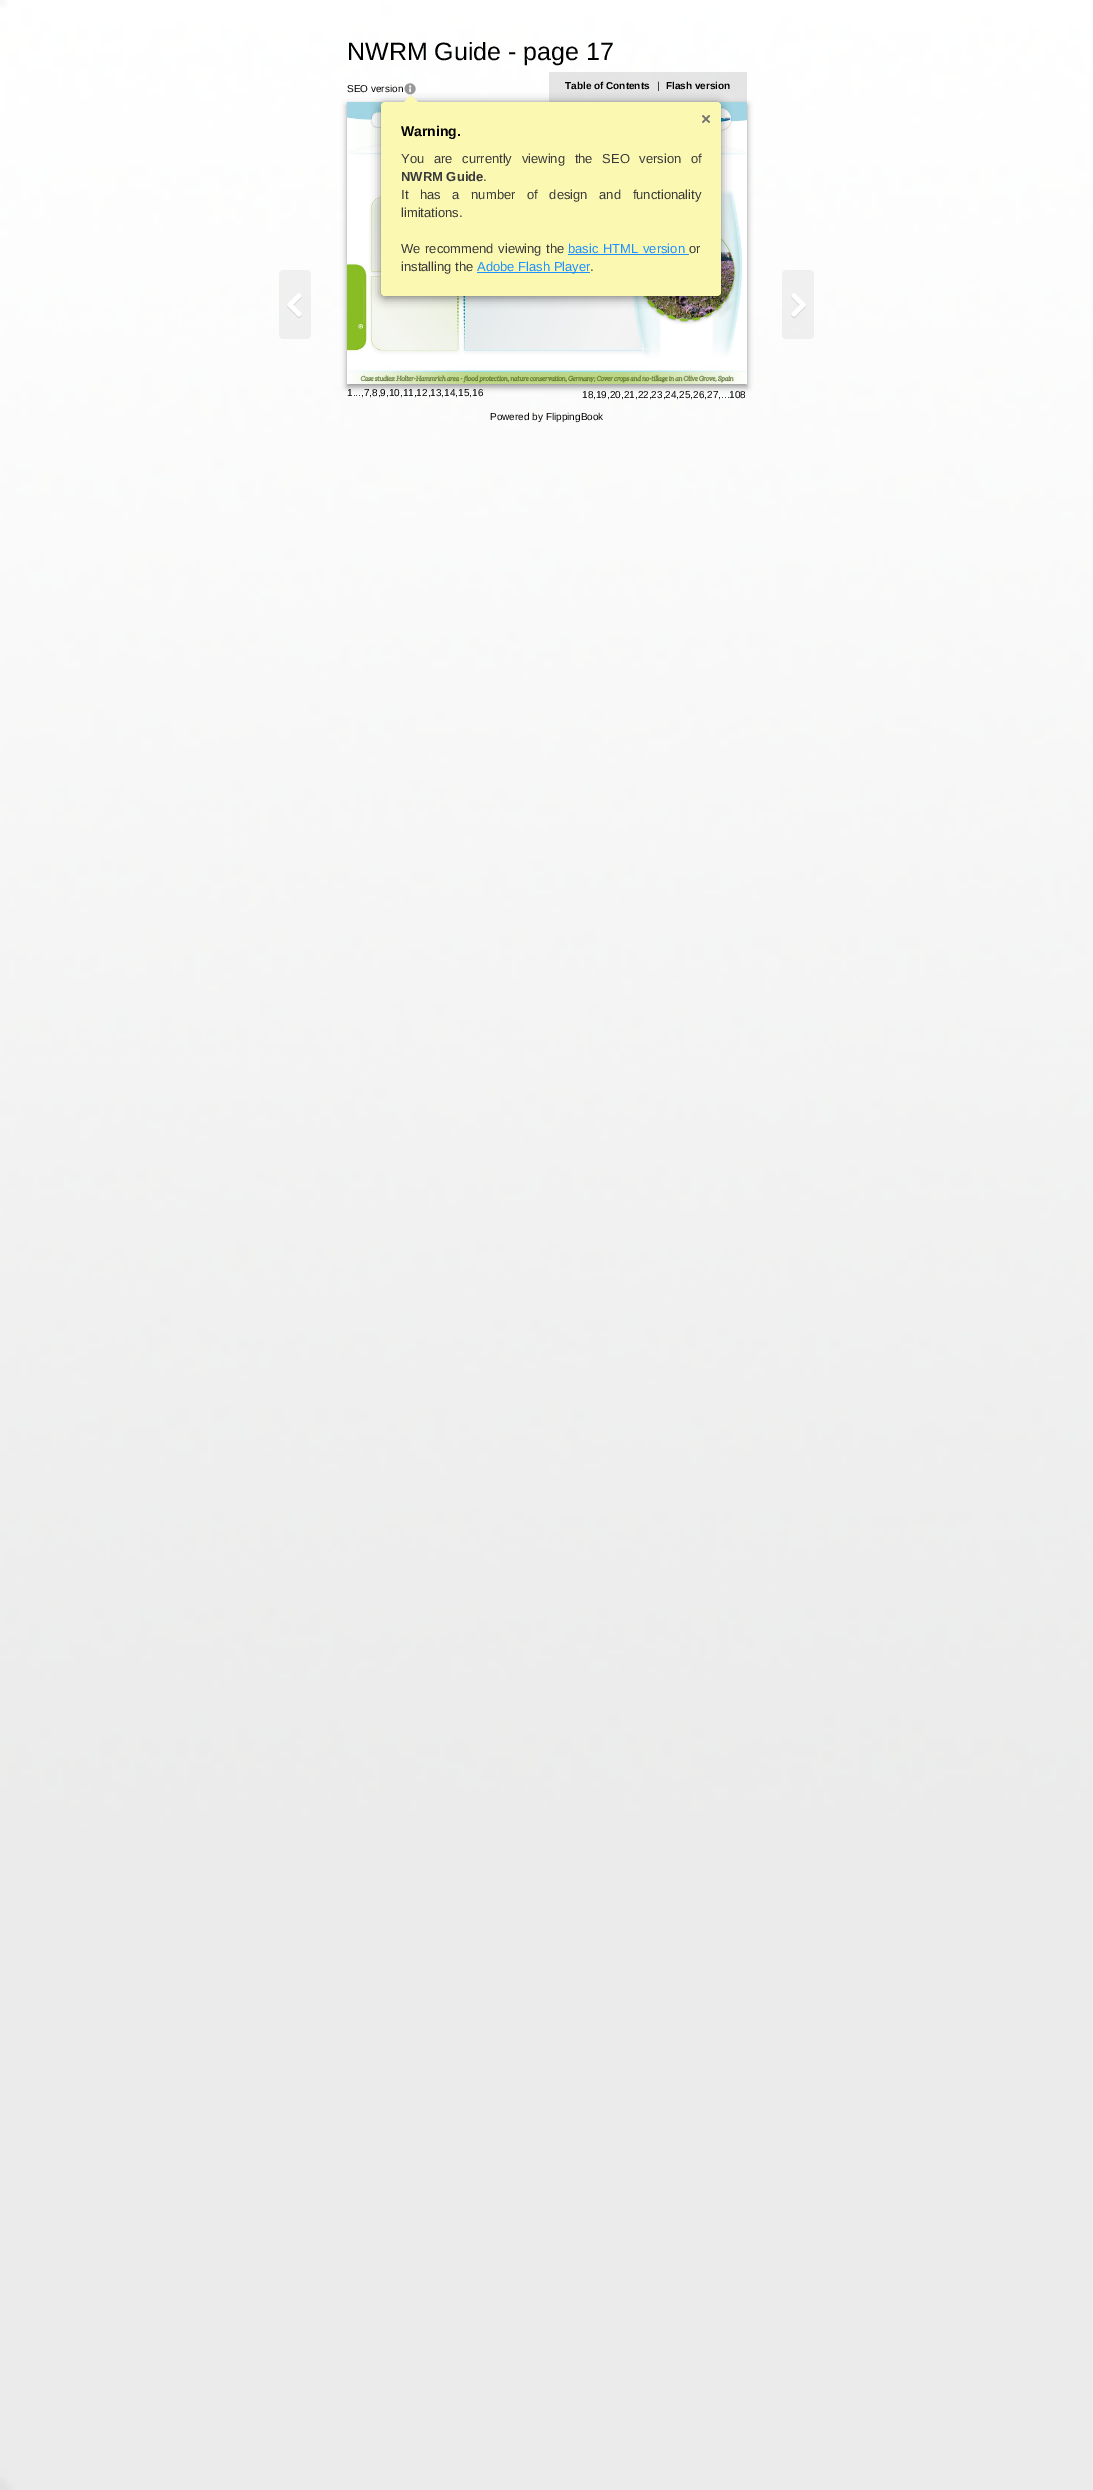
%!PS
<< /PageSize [1093 2490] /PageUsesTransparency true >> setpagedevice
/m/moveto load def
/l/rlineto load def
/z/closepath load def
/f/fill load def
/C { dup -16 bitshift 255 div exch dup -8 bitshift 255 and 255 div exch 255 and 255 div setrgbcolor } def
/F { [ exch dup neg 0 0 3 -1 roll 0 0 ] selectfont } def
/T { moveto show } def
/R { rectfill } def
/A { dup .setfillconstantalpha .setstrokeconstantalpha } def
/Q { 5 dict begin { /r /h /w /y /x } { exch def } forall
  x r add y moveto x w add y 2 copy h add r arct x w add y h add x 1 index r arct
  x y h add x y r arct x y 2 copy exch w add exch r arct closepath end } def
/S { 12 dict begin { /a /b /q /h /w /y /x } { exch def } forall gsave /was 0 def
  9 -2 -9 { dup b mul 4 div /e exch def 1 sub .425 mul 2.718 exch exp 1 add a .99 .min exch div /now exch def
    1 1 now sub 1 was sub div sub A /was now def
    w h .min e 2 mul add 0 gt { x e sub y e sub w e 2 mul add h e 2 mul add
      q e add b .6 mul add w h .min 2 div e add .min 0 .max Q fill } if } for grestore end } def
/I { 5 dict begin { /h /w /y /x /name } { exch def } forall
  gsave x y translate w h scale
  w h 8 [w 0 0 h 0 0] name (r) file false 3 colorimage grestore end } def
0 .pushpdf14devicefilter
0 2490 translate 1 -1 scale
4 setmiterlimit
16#FFFFFF C
0 0 1093 2490 R
(1.rgb) 0 0 1093 2490 I
/LiberationSans-Regular 25 F
16#000000 C
(NWRM Guide - page 17) 347 60 T
347 105 400 282 0 3 .4 S
0.1 A
549 72 198 30 R
/LiberationSans-Bold 10 F
1 A
(Table of Contents) 565 89 T
/LiberationSans-Regular 10 F
(|) 657 89 T
/LiberationSans-Bold 10 F
(Flash version) 666 89 T
/LiberationSans-Regular 10 F
(SEO version) 347 92 T
(2.rgb) 404 83 12 12 I
(4.rgb) 347 102 400 282 I
381 104 340 194 4 5 .5 S
16#FAF8B1 C
381 102 340 194 4 Q f
421 105 m -20 0 l 10 -10 l z f
(3.rgb) 702 115 8 8 I
/LiberationSans-Bold 14 F
16#000000 C
(Warning.) 401 136 T
/LiberationSans-Regular 13 F
16#3A3A3A C
401 163 m 6 0 32 (You are currently viewing the SEO version of) widthshow
/LiberationSans-Bold 13 F
(NWRM Guide) 401 181 T
/LiberationSans-Regular 13 F
(.) 483 181 T
401 199 m 8 0 32 (It has a number of design and functionality) widthshow
(limitations.) 401 217 T
401 253 m 1 0 32 (We recommend viewing the) widthshow
16#1E90FF C
568 253 m 1 0 32 (basic HTML version) widthshow
568 254 121 1 R
16#3A3A3A C
(or) 689 253 T
(installing the) 401 271 T
16#1E90FF C
477 272 113 1 R
(Adobe Flash Player) 477 271 T
16#3A3A3A C
(.) 590 271 T
(5.rgb) 358 324 6 5 I
/LiberationSans-Regular 10 F
16#000000 C
(1...,7,8,9,10,11,12,13,14,15,16) 347 396 T
(18,19,20,21,22,23,24,25,26,27,...108) 582 398 T
(Powered by FlippingBook) 490 420 T
(6.rgb) 279 270 32 69 I
(7.rgb) 782 270 32 69 I
.poppdf14devicefilter showpage
